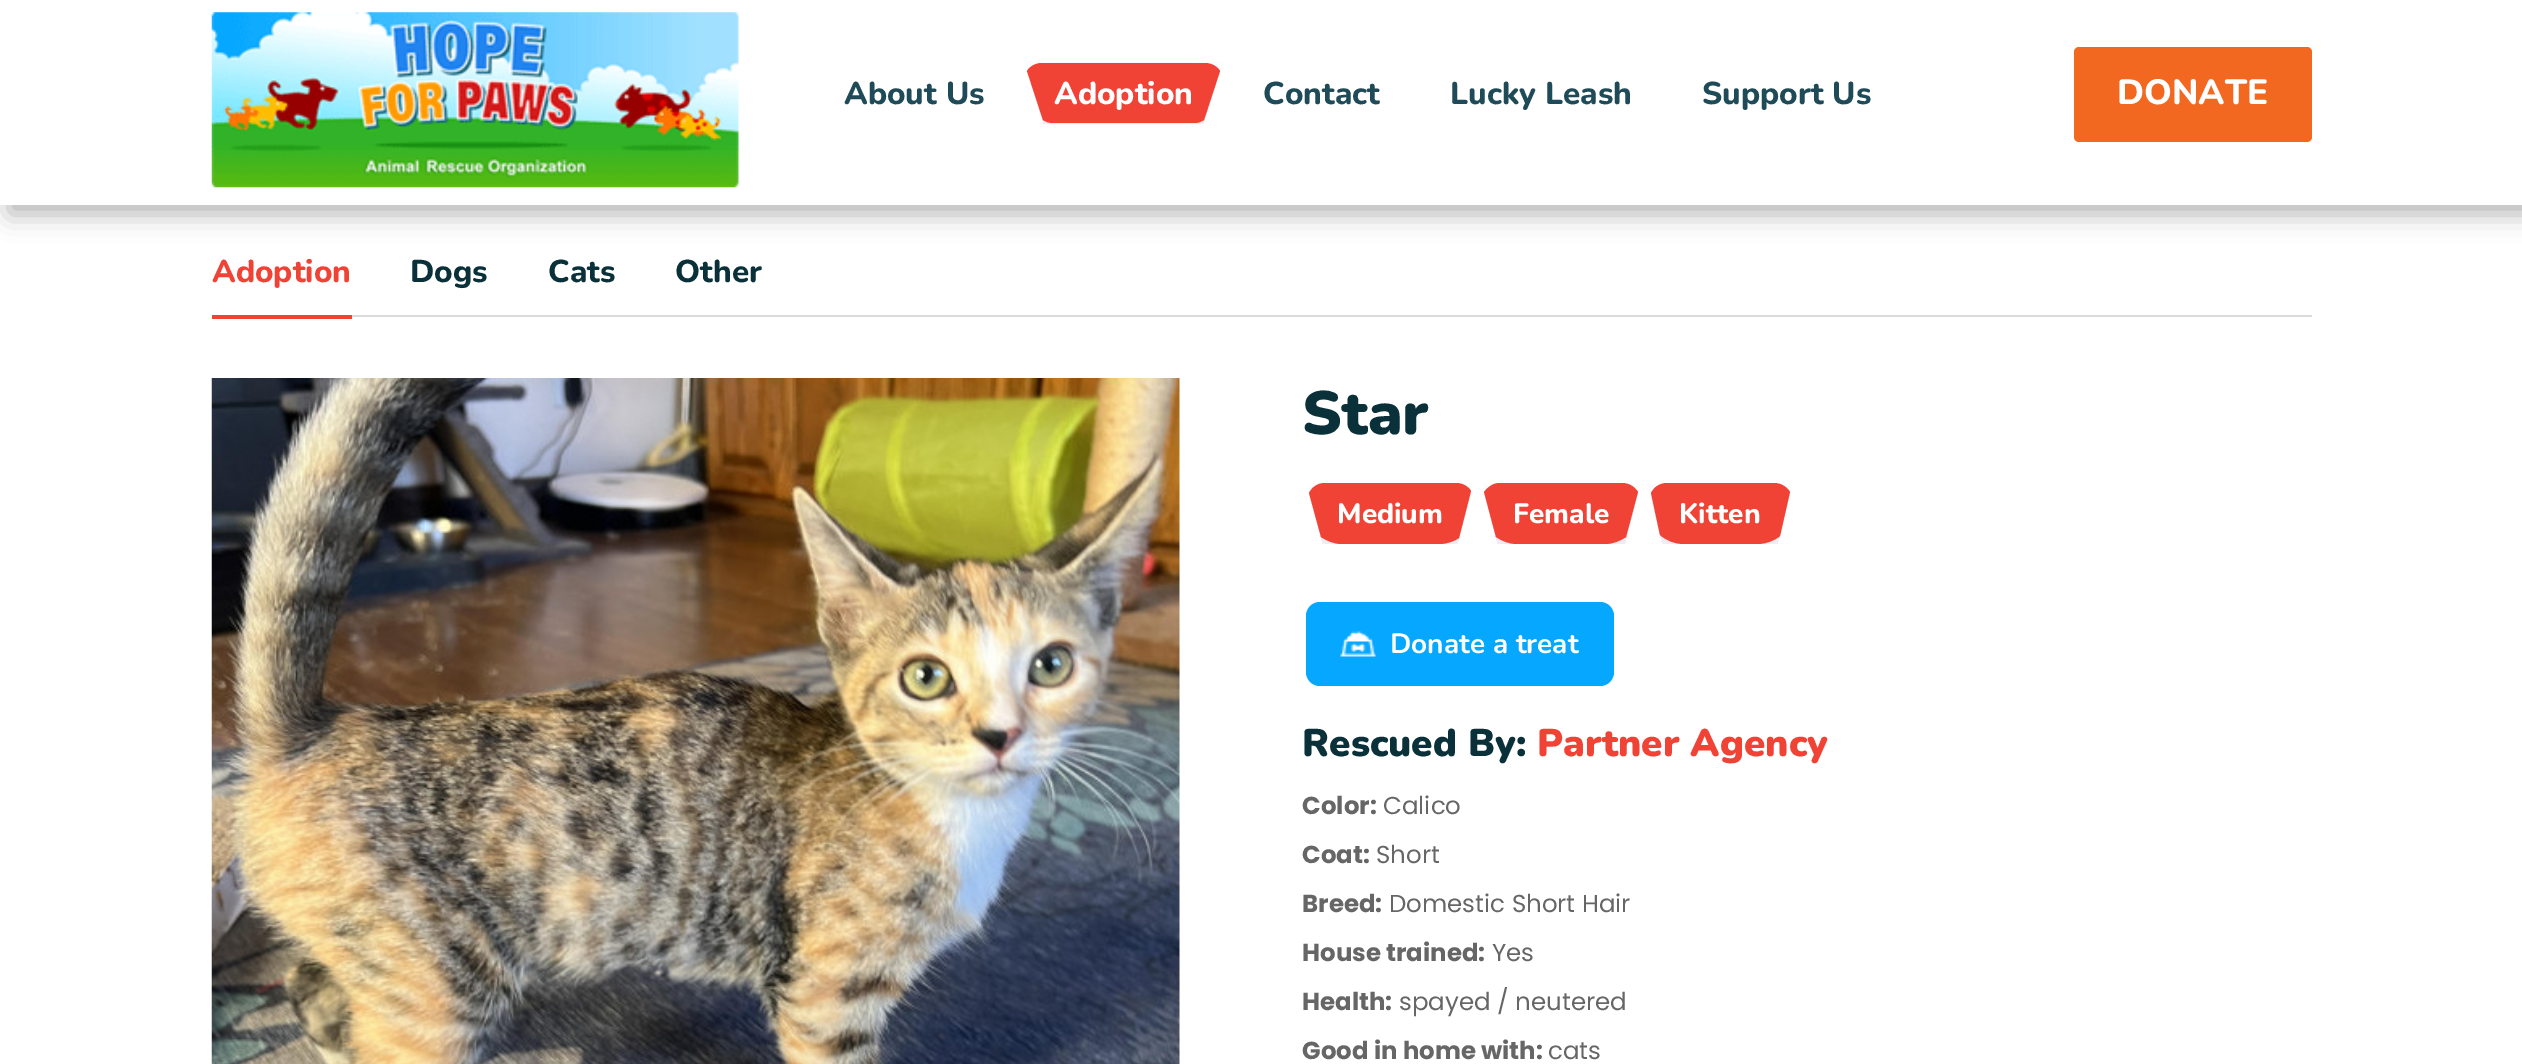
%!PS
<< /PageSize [2522 1064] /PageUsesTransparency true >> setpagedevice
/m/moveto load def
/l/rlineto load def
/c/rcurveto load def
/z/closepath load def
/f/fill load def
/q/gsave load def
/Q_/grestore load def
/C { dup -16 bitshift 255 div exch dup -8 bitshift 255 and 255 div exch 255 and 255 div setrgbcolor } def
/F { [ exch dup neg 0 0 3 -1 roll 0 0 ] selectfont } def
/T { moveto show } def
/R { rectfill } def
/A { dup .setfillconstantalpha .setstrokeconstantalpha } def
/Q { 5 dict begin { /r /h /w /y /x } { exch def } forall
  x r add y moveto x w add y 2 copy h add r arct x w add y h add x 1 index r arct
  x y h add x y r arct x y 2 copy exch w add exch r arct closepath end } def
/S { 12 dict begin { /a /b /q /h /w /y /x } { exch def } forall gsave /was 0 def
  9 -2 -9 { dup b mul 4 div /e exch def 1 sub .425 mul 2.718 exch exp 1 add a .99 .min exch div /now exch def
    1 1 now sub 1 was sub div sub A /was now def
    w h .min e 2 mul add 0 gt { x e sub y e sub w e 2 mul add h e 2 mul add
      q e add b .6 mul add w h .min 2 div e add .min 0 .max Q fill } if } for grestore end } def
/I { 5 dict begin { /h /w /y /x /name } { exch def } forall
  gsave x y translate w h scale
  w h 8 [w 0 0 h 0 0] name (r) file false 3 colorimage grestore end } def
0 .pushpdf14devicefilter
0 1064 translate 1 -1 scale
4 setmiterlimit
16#FFFFFF C
0 0 2522 1064 R
q
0 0 m 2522 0 l 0 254 l -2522 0 l z 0 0 m 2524 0 l 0 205 l -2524 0 l z eoclip newpath
16#000000 C
9 9 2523 205 0 13 .3 S
Q_
(1.rgb) 211 12 528 176 I
/Nunito-ExtraBold 31.5 F
16#1E4B57 C
(About Us) 844 104 T
q
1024 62 m 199 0 l -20 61.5 l -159 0 l z clip newpath
16#47337F C
1022 70 203 65 37 10.5 .11 S
Q_
16#F04336 C
1042 63 m 163 0 l 6 0 12 3 15 8 c -16 49 l -3 2 -6 3 -9 3 c -143 0 l -3 0 -6 -1 -9 -3 c -16 -49 l 3 -5 9 -8 15 -8 c z f
16#FFFFFF C
(Adoption) 1054 104 T
16#1E4B57 C
(Contact) 1263 104 T
(Lucky Leash) 1450 104 T
(Support Us) 1702 104 T
16#F26821 C
2074 47 238 95 5 Q f
/Nunito-ExtraBold 35 F
16#FFFFFF C
(DONATE) 2117 104 T
16#DBDBDB C
352 315 1960 2 R
/Nunito-ExtraBold 31.5 F
16#F04336 C
(Adoption) 212 282 T
212 315 140 4 R
16#0A303A C
(Dogs) 410 282 T
(Cats) 548 282 T
(Other) 675 282 T
(2.rgb) 211 378 969 686 I
/Nunito-Black 61 F
(Star) 1302 434 T
q
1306.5 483 m 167 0 l -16.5 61 l -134 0 l z clip newpath
16#47337F C
1306 490 169 65 37 10.5 .11 S
Q_
16#F04336 C
1325 483 m 131 0 l 6 0 12 3 15 8 c -12 47 l -6 4 -13 6 -20 6 c -97 0 l -8 0 -15 -3 -21 -7 c -12 -44 l 3 -6 9 -10 16 -10 c z f
/Nunito-ExtraBold 28 F
16#FFFFFF C
(Medium) 1337 523 T
q
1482 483 m 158.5 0 l -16 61 l -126.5 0 l z clip newpath
16#47337F C
1481 490 161 65 37 10.5 .11 S
Q_
16#F04336 C
1500 483 m -7 0 -12 4 -16 9 c 12 45 l 6 4 13 7 21 7 c 88 0 l 8 0 15 -3 21 -7 c 12 -45 l -3 -5 -9 -9 -16 -9 c z f
16#FFFFFF C
(Female) 1513 523 T
q
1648 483 m 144 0 l -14.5 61 l -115 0 l z clip newpath
16#47337F C
1647 490 147 65 37 10.5 .11 S
Q_
16#F04336 C
1667 483 m 107 0 l 7 0 13 4 16 9 c -10 44 l -6 5 -14 8 -23 8 c -73 0 l -9 0 -17 -3 -24 -9 c -9 -42 l 3 -6 9 -10 16 -10 c z f
16#FFFFFF C
(Kitten) 1679 523 T
16#05A7FF C
1306 602 308 84 14 Q f
(3.rgb) 1340 631 36 26 I
/Nunito-Bold 28 F
16#FFFFFF C
(Donate a treat) 1390 653 T
/Nunito-Black 38.5 F
16#0A303A C
(Rescued By:) 1302 756 T
16#F04336 C
(Partner Agency) 1537 756 T
/Poppins-Bold 24.5 F
16#676666 C
(Color:) 1302 814 T
/Poppins-Regular 24.5 F
(Calico) 1383 814 T
/Poppins-Bold 24.5 F
(Coat:) 1302 863 T
/Poppins-Regular 24.5 F
(Short) 1376 863 T
/Poppins-Bold 24.5 F
(Breed:) 1302 912 T
/Poppins-Regular 24.5 F
(Domestic Short Hair) 1389 912 T
/Poppins-Bold 24.5 F
(House trained:) 1302 961 T
/Poppins-Regular 24.5 F
(Yes) 1492 961 T
/Poppins-Bold 24.5 F
(Health:) 1302 1010 T
/Poppins-Regular 24.5 F
(spayed / neutered) 1399 1010 T
/Poppins-Bold 24.5 F
(Good in home with:) 1302 1059 T
/Poppins-Regular 24.5 F
(cats) 1548 1059 T
.poppdf14devicefilter showpage
